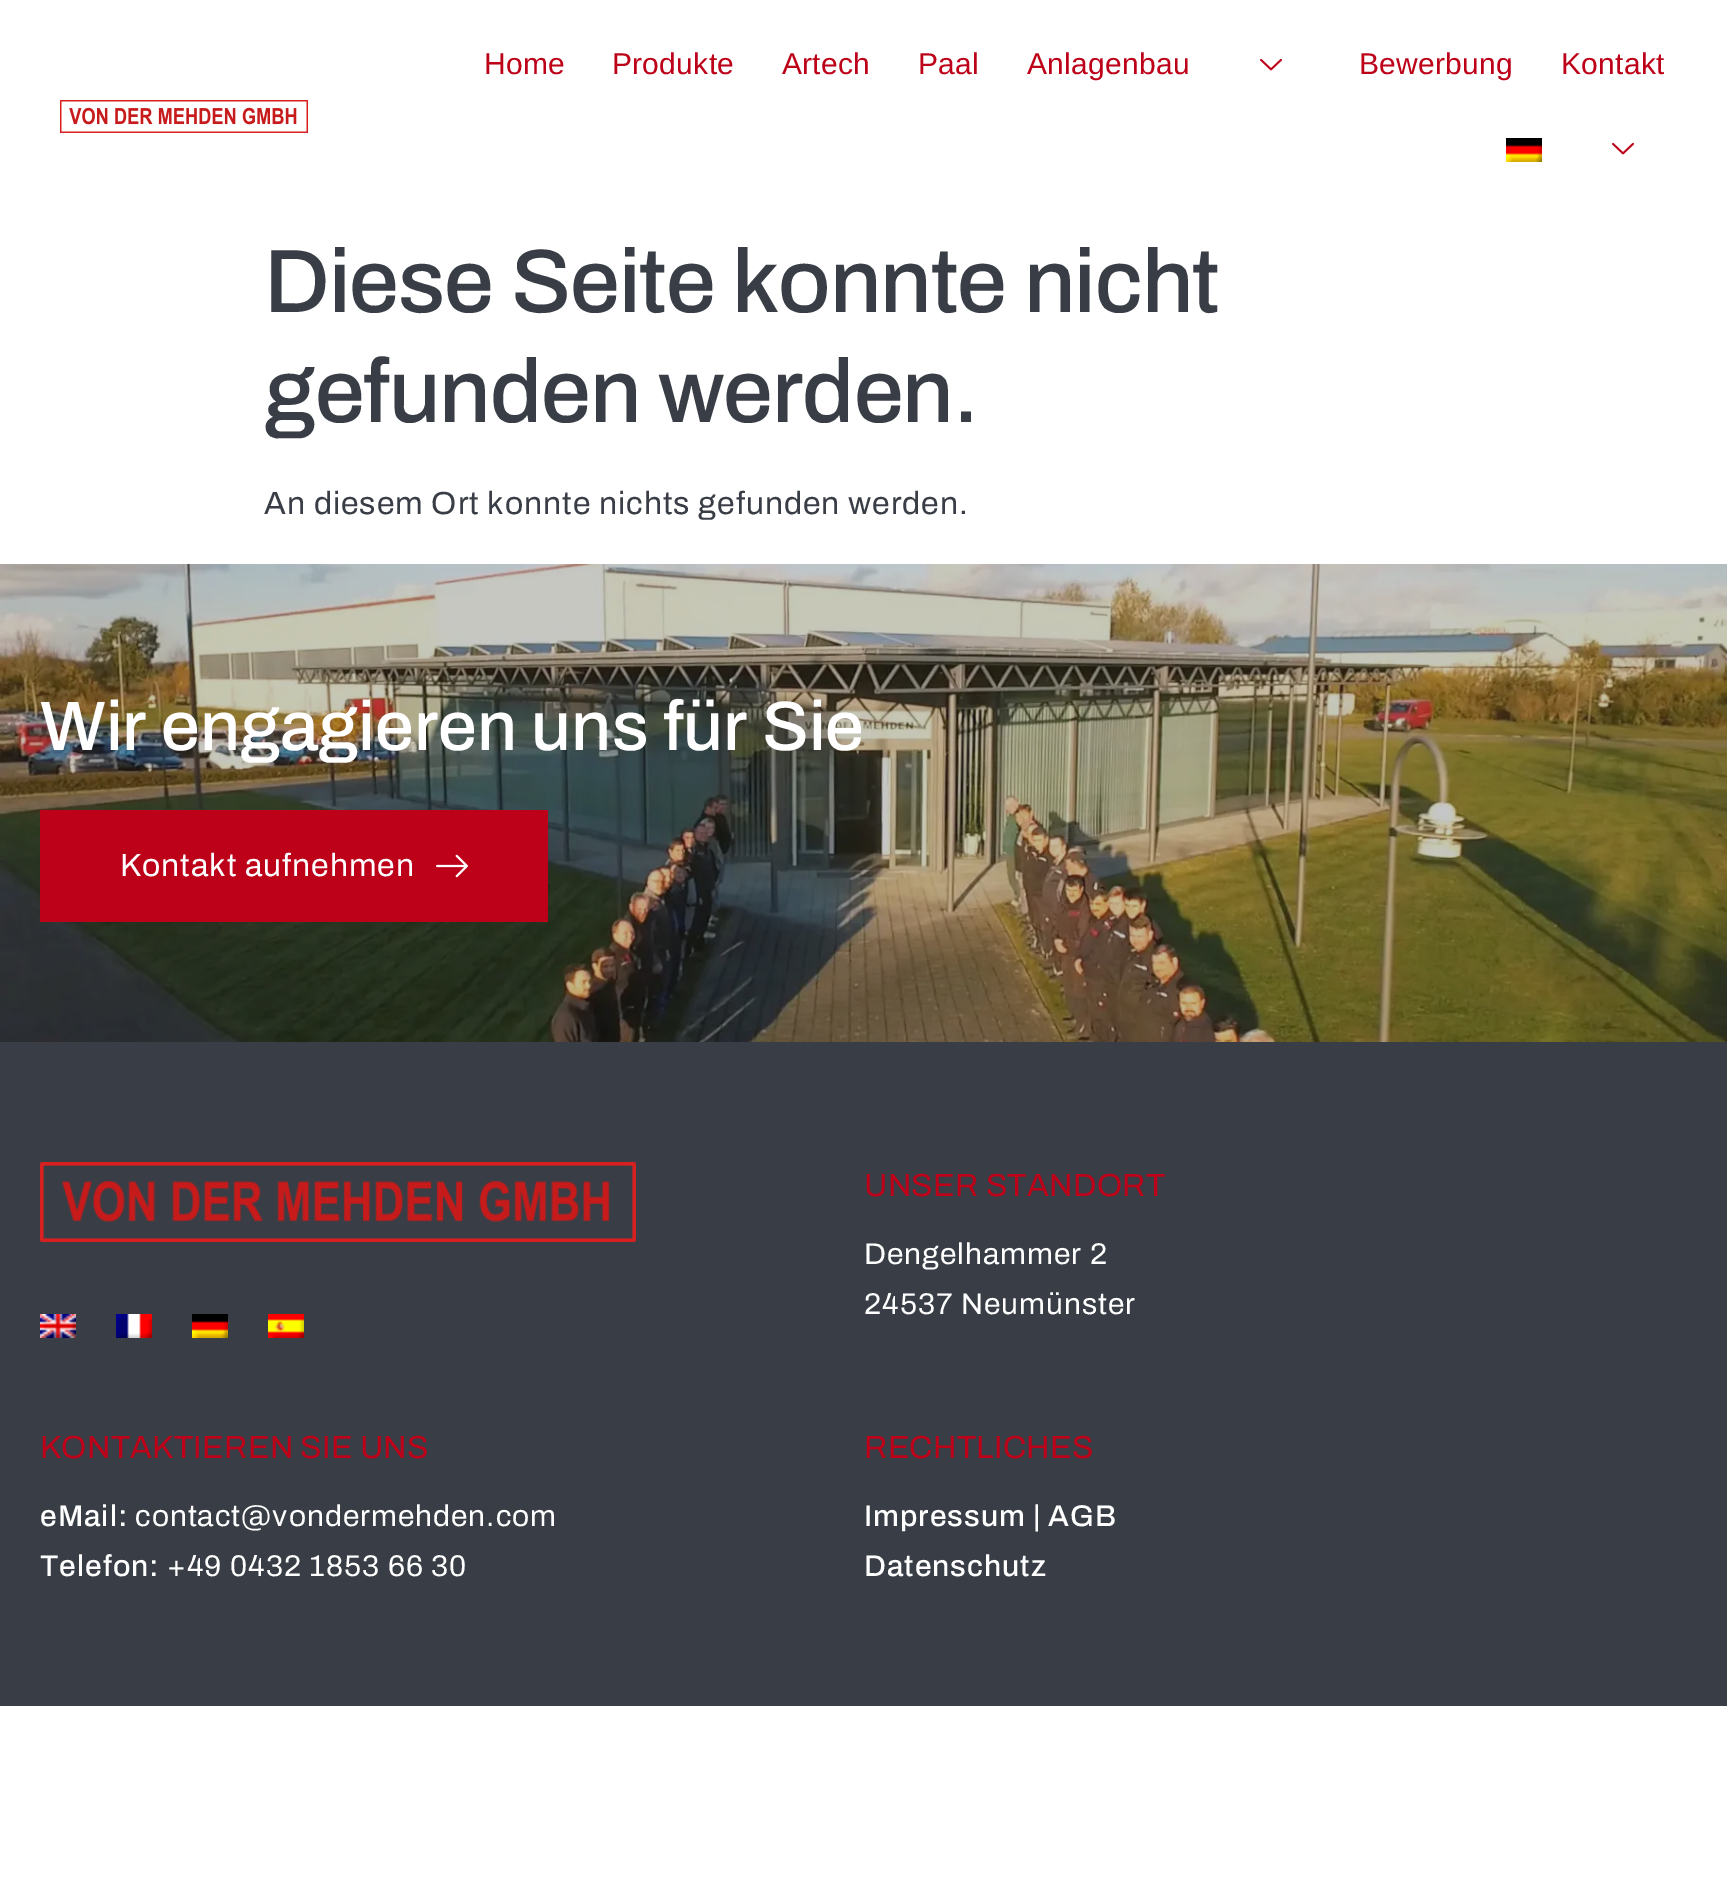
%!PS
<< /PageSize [1727 1882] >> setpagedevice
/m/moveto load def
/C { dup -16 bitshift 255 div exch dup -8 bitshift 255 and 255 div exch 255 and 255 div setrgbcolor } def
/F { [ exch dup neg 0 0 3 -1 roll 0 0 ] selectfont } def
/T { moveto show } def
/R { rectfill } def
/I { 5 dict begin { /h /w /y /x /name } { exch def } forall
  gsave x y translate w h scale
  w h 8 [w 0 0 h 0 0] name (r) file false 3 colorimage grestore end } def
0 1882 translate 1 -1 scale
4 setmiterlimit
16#FFFFFF C
0 0 1727 1882 R
/LiberationSans-Regular 30 F
16#BD0119 C
484 74 m .25 0 (Home) ashow
612 74 m .25 0 (Produkte) ashow
782 74 m .25 0 (Artech) ashow
918 74 m .25 0 (Paal) ashow
1027 74 m .25 0 (Anlagenbau) ashow
(1.rgb) 1260 58 22 13 I
1359 74 m .25 0 (Bewerbung) ashow
1561 74 m .25 0 (Kontakt) ashow
(2.rgb) 1506 138 36 24 I
(1.rgb) 1612 142 22 13 I
(3.rgb) 60 100 248 33 I
/Archivo-SemiBold 90 F
16#393E46 C
264 312 m -1 0 (Diese Seite konnte nicht) ashow
264 422 m -1 0 (gefunden werden.) ashow
/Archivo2-SemiBold 32 F
264 514 m 1 0 (An diesem Ort konnte nichts gefunden werden.) ashow
(4.rgb) 0 564 1727 478 I
/Archivo-SemiBold 70 F
16#FFFFFF C
(Wir engagieren uns für Sie) 40 750 T
16#BD0119 C
40 810 508 112 R
/Archivo2-SemiBold 32 F
16#FFFFFF C
120 876 m 1 0 (Kontakt aufnehmen) ashow
(5.rgb) 436 854 32 24 I
16#393E46 C
0 1042 1727 664 R
(6.rgb) 40 1162 596 80 I
(7.rgb) 40 1314 36 24 I
(8.rgb) 116 1314 36 24 I
(2.rgb) 192 1314 36 24 I
(9.rgb) 268 1314 36 24 I
16#BD0119 C
864 1196 m .25 0 (UNSER STANDORT) ashow
/Archivo2-SemiBold 30 F
16#FFFFFF C
864 1264 m 1 0 (Dengelhammer 2) ashow
864 1314 m 1 0 (24537 Neumünster) ashow
/Archivo2-SemiBold 32 F
16#BD0119 C
40 1458 m .25 0 (KONTAKTIEREN SIE UNS) ashow
/Archivo-SemiBold 30 F
16#FFFFFF C
40 1526 m 1 0 (eMail:) ashow
/Archivo2-SemiBold 30 F
135 1526 m 1 0 (contact@vondermehden.com) ashow
/Archivo-SemiBold 30 F
40 1576 m 1 0 (Telefon:) ashow
/Archivo2-SemiBold 30 F
167 1576 m 1 0 (+49 0432 1853 66 30) ashow
/Archivo2-SemiBold 32 F
16#BD0119 C
864 1458 m .25 0 (RECHTLICHES) ashow
/Archivo-SemiBold 30 F
16#FFFFFF C
864 1526 m 1 0 (Impressum | AGB) ashow
864 1576 m 1 0 (Datenschutz) ashow
showpage
